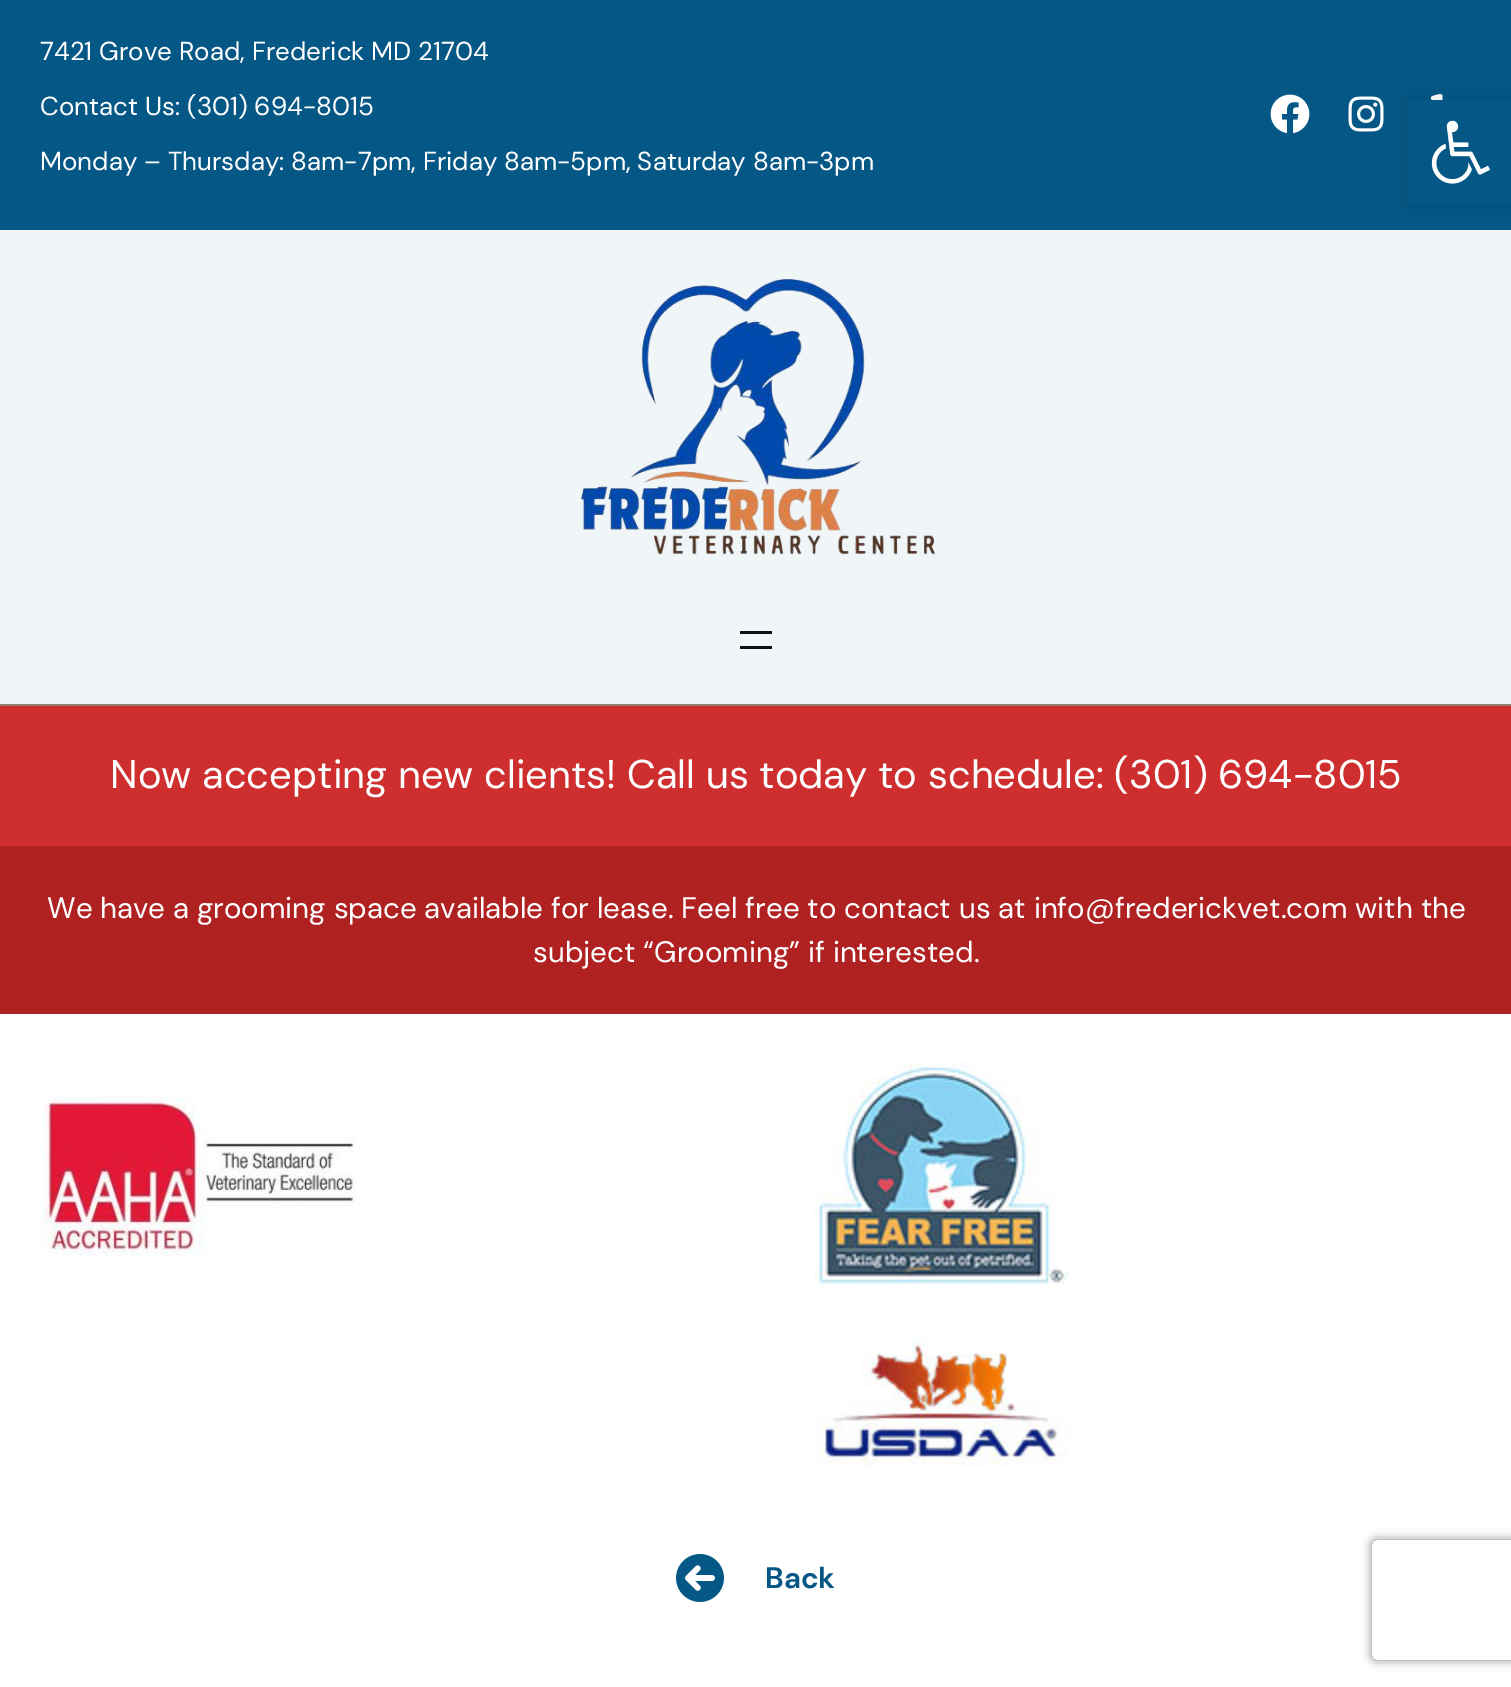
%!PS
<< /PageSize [1511 1687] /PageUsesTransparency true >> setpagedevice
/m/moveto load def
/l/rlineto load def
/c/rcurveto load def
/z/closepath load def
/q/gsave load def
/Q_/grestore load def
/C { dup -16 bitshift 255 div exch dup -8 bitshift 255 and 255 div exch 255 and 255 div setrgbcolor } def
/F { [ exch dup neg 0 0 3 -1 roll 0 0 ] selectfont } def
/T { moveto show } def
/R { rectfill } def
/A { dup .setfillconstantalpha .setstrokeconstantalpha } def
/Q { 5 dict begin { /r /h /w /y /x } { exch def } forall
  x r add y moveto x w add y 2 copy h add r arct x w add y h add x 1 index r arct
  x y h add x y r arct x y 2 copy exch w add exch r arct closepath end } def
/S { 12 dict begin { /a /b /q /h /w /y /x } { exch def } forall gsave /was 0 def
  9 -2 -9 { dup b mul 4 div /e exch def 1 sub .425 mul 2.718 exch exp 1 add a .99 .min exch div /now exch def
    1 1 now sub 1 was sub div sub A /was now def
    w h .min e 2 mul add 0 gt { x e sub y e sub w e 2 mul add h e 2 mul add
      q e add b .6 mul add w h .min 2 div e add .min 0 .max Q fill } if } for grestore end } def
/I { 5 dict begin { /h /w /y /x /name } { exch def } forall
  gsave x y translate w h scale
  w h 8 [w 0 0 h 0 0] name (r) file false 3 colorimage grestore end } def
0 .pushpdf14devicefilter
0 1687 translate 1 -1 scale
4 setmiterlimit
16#FFFFFF C
0 0 1511 1687 R
16#055785 C
0 0 1511 230 R
/DMSans-Regular 26 F
16#FFFFFF C
(7421 Grove Road, Frederick MD 21704) 40 60 T
(Contact Us: \(301\) 694-8015) 40 115 T
(Monday – Thursday: 8am-7pm, Friday 8am-5pm, Saturday 8am-3pm) 40 170 T
(1.rgb) 1270 94 40 40 I
(2.rgb) 1348 96 36 36 I
(3.rgb) 1430 94 13 6 I
16#F0F5F8 C
0 230 1511 474 R
16#8E7E6E C
0 704 1511 2 R
(4.rgb) 581 279 354 276 I
16#111111 C
740 631 32 3 R
740 646 32 3 R
16#CF2E2E C
0 706 1511 140 R
/DMSans-Regular 40 F
16#FFFFFF C
(Now accepting new clients! Call us today to schedule: \(301\) 694-8015) 110 788 T
16#B02222 C
0 846 1511 168 R
/DMSans-Regular 29.55 F
16#FFFFFF C
(We have a grooming space available for lease. Feel free to contact us at info@frederickvet.com with the) 47 918 T
(subject “Grooming” if interested.) 533 962 T
(5.rgb) 42 1096 314 160 I
(6.rgb) 814 1062 254 224 I
(7.rgb) 814 1338 254 128 I
(8.rgb) 676 1554 48 48 I
/DMSans-Bold 29.55 F
16#055785 C
(Back) 765 1588 T
16#000000 C
1408 100 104 104 0 10 .1 S
16#055785 C
1408 100 103 104 R
(9.rgb) 1431 120 59 64 I
q
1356 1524 m 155 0 l 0 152 l -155 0 l z 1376 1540 m 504 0 l 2 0 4 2 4 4 c 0 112 l 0 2 -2 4 -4 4 c -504 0 l -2 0 -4 -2 -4 -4 c 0 -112 l 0 -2 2 -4 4 -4 c z eoclip newpath
16#808080 C
1372 1540 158 120 4 5 1 S
Q_
.poppdf14devicefilter showpage
